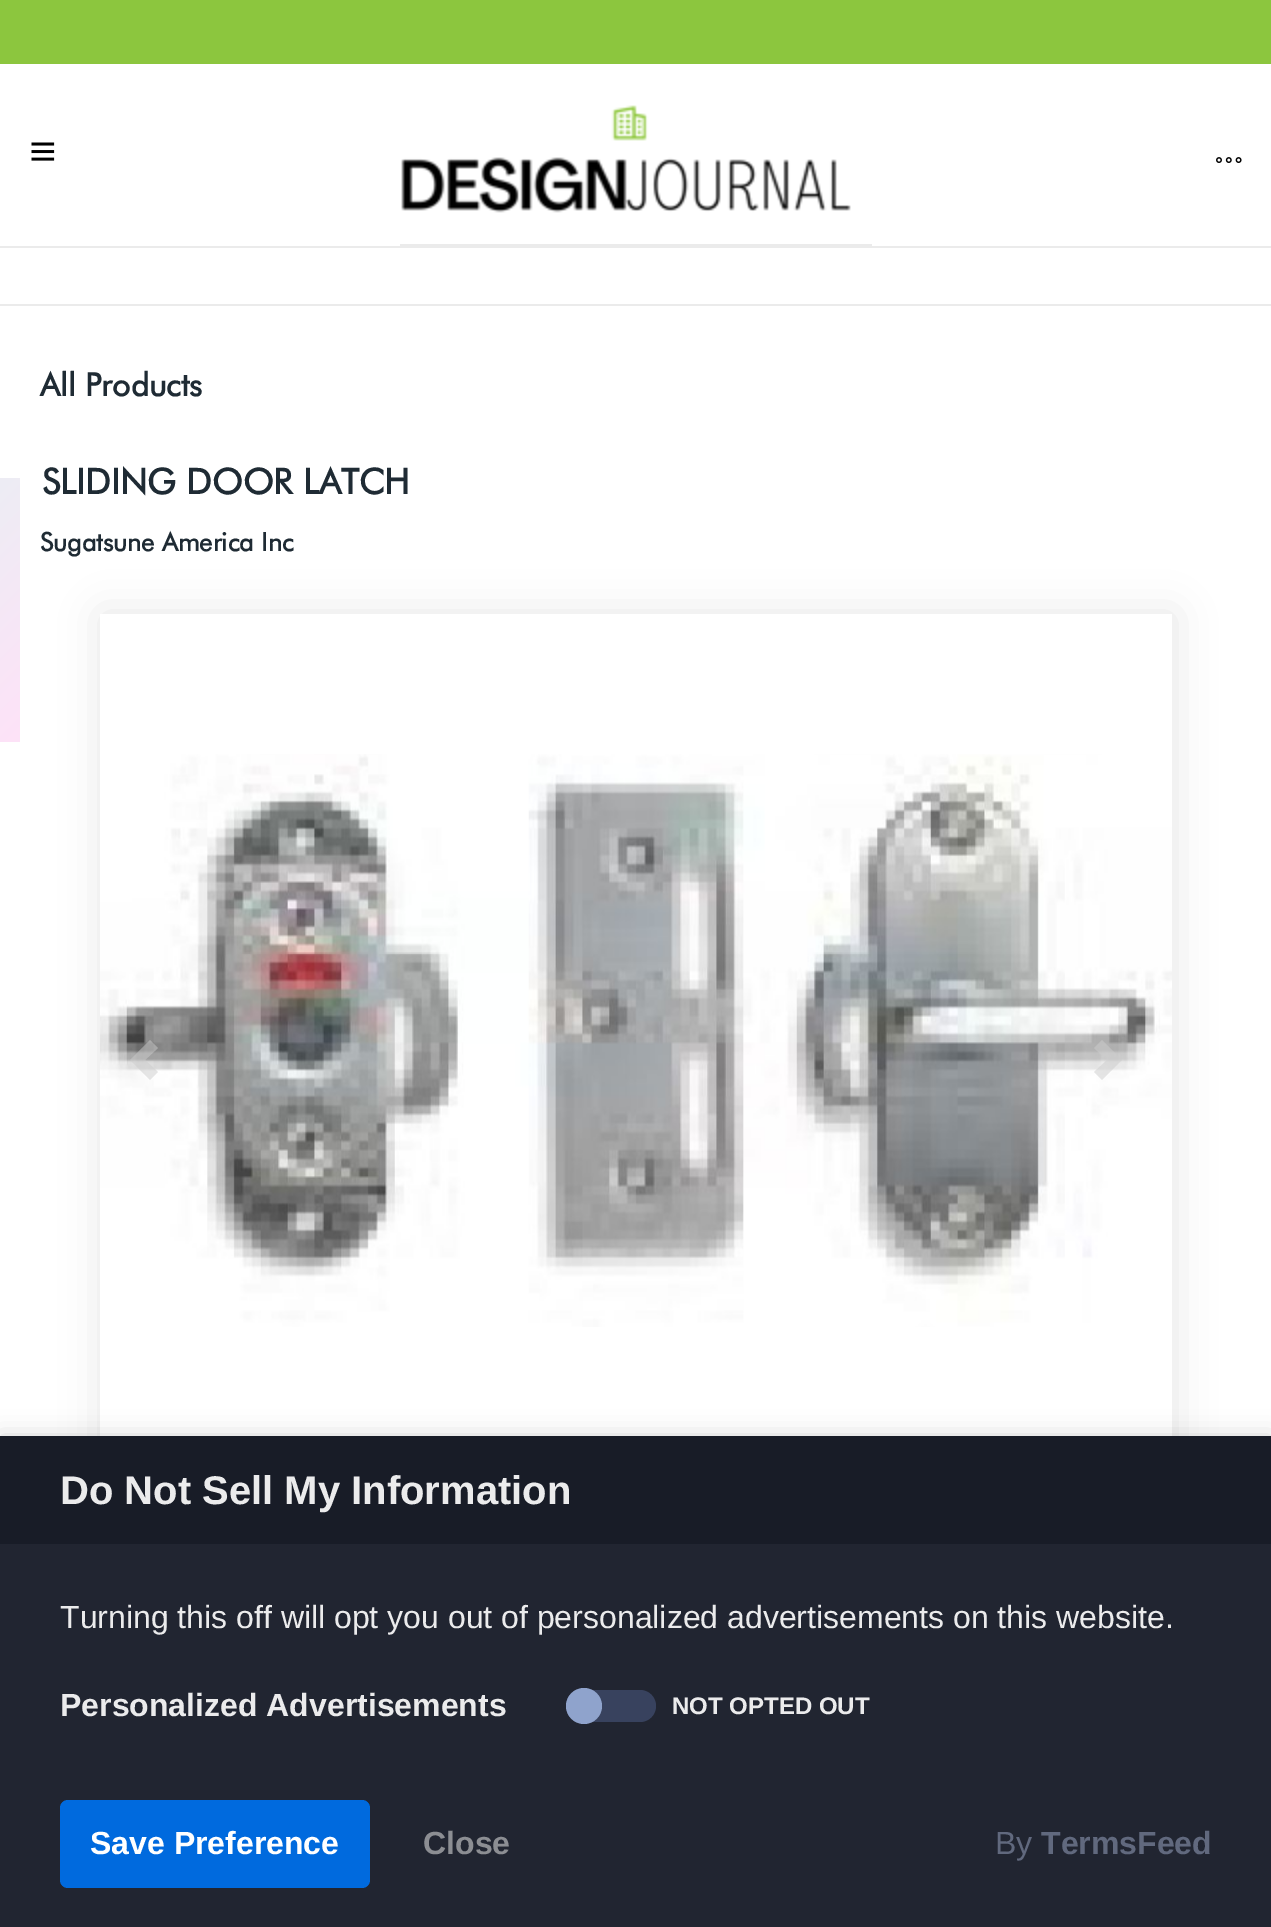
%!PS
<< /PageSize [1271 1927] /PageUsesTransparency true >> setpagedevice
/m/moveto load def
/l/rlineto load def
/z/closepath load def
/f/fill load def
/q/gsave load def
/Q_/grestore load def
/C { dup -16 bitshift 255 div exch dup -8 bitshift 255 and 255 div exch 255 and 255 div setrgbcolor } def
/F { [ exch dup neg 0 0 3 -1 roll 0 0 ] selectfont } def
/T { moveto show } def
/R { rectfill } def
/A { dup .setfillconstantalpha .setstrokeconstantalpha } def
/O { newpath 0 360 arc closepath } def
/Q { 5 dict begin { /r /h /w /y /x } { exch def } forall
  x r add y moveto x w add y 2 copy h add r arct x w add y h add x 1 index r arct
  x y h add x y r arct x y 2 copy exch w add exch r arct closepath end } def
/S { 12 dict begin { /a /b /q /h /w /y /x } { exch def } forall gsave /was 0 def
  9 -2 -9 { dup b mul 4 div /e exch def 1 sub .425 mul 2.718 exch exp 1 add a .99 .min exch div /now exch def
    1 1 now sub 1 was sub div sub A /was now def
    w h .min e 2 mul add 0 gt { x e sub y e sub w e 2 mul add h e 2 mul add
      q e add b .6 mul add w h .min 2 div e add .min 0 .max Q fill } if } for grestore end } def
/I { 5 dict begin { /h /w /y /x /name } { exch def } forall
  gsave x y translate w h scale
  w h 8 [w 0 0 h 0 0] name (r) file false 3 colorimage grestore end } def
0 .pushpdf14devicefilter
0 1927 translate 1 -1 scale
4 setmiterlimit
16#FFFFFF C
0 0 1271 1927 R
16#8CC63E C
0 0 1271 64 R
(1.rgb) 31 142 24 19 I
16#EBEBEB C
400 244 472 2 R
(2.rgb) 401 105 450 108 I
(3.rgb) 1216 157 26 6 I
0 246 1271 2 R
0 304 1271 2 R
q 0 478 m 20 0 l 0 264 l -20 0 l z clip newpath
<< /ShadingType 2 /ColorSpace /DeviceRGB /Coords [-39 801 -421 419] /Extend [true true] /Function << /FunctionType 3 /Domain [0 1] /Functions [<< /FunctionType 2 /Domain [0 1] /C0 [.996 .886 .973] /C1 [.863 .973 .937] /N 1 >> << /FunctionType 2 /Domain [0 1] /C0 [.863 .973 .937] /C1 [.863 .973 .937] /N 1 >>] /Bounds [.74] /Encode [0 1 0 1] >> >> shfill Q_
/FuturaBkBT-Bold 32 F
16#1F2B34 C
(All Products) 40 396 T
/FuturaBkBT-Bold 35.25 F
(SLIDING DOOR LATCH) 42 494 T
/FuturaBkBT-Bold 25.5 F
(Sugatsune America Inc) 40 551 T
q
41 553 m 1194 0 l 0 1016 l -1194 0 l z 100 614 m 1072 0 l 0 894 l -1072 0 l z eoclip newpath
16#000000 C
102 614 1072 894 0 20 .1 S
Q_
(4.rgb) 100 754 1072 573 I
0.5 A
16#CCCCCC C
150 1040 m -20 20 l 20 20 l 8 -8 l -13 -12 l 13 -12 l z f
1102 1040 m -8 8 l 13 12 l -13 12 l 8 8 l 20 -20 l z f
1 A
16#000000 C
0 1436 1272 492 0 12 .16 S
16#212531 C
0 1544 1271 383 R
16#181C27 C
0 1436 1271 108 R
/LiberationSans-Bold 40 F
16#EBEBEC C
(Do Not Sell My Information) 60 1504 T
/LiberationSans-Regular 32 F
(Turning this off will opt you out of personalized advertisements on this website.) 60 1628 T
/LiberationSans-Bold 32 F
(Personalized Advertisements) 60 1716 T
16#38425E C
566 1690 90 32 16 Q f
16#8FA3CC C
584 1706 18 O f
/LiberationSans-Bold 24 F
16#EBEBEC C
(NOT OPTED OUT) 672 1714 T
16#006ADE C
60 1800 310 88 8 Q f
/LiberationSans-Bold 32 F
16#FFFFFF C
(Save Preference) 90 1854 T
16#8C8E93 C
(Close) 423 1854 T
/LiberationSans-Regular 32 F
16#61697E C
(By) 995 1854 T
/LiberationSans-Bold 32 F
(TermsFeed) 1041 1854 T
.poppdf14devicefilter showpage
